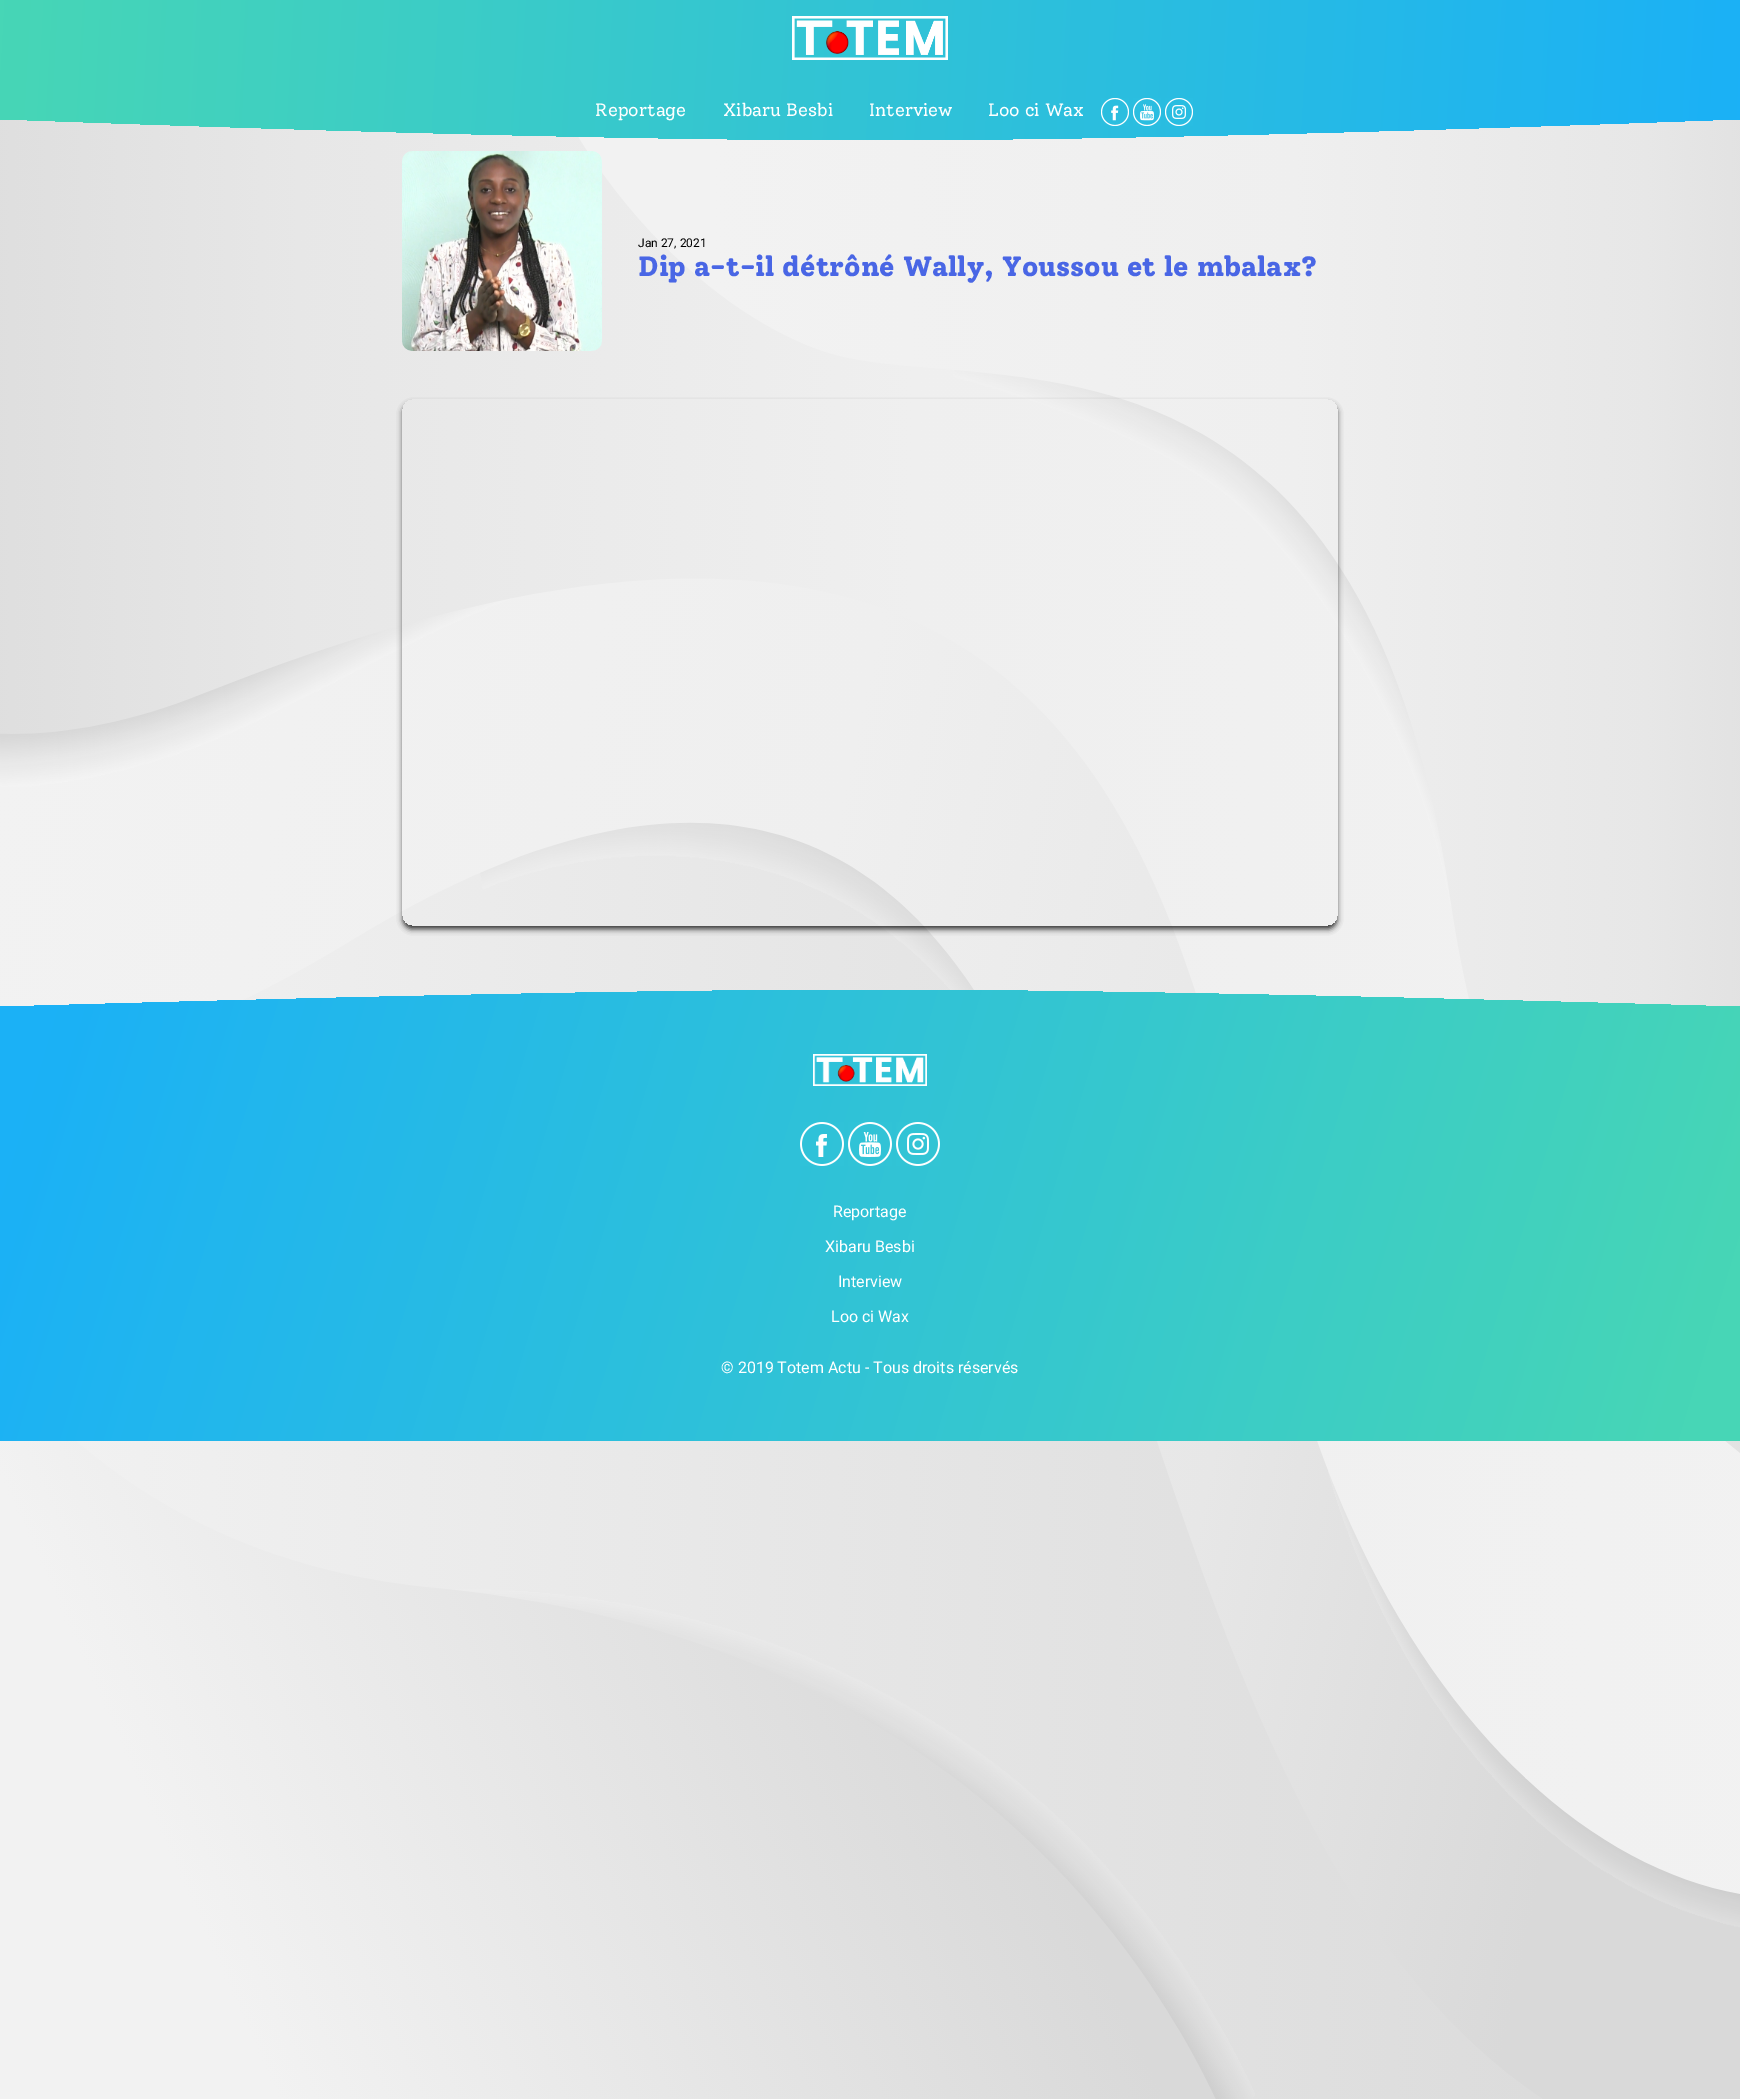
%!PS
<< /PageSize [1740 2099] /PageUsesTransparency true >> setpagedevice
/m/moveto load def
/l/rlineto load def
/c/rcurveto load def
/z/closepath load def
/q/gsave load def
/Q_/grestore load def
/C { dup -16 bitshift 255 div exch dup -8 bitshift 255 and 255 div exch 255 and 255 div setrgbcolor } def
/F { [ exch dup neg 0 0 3 -1 roll 0 0 ] selectfont } def
/T { moveto show } def
/R { rectfill } def
/A { dup .setfillconstantalpha .setstrokeconstantalpha } def
/Q { 5 dict begin { /r /h /w /y /x } { exch def } forall
  x r add y moveto x w add y 2 copy h add r arct x w add y h add x 1 index r arct
  x y h add x y r arct x y 2 copy exch w add exch r arct closepath end } def
/S { 12 dict begin { /a /b /q /h /w /y /x } { exch def } forall gsave /was 0 def
  9 -2 -9 { dup b mul 4 div /e exch def 1 sub .425 mul 2.718 exch exp 1 add a .99 .min exch div /now exch def
    1 1 now sub 1 was sub div sub A /was now def
    w h .min e 2 mul add 0 gt { x e sub y e sub w e 2 mul add h e 2 mul add
      q e add b .6 mul add w h .min 2 div e add .min 0 .max Q fill } if } for grestore end } def
/I { 5 dict begin { /h /w /y /x /name } { exch def } forall
  gsave x y translate w h scale
  w h 8 [w 0 0 h 0 0] name (r) file false 3 colorimage grestore end } def
0 .pushpdf14devicefilter
0 2099 translate 1 -1 scale
4 setmiterlimit
16#FFFFFF C
0 0 1740 2099 R
(1.rgb) 0 119 1740 1980 I
q 0 0 m 1740 0 l 0 119 l -379 14 -669 21 -870 21 c -201 0 -491 -7 -870 -21 c z eoclip newpath
<< /ShadingType 2 /ColorSpace /DeviceRGB /Coords [0 70 1734 168] /Extend [true true] /Function << /FunctionType 2 /Domain [0 1] /C0 [.278 .839 .714] /C1 [.106 .694 .965] /N 1 >> >> shfill Q_
(2.rgb) 792 16 156 44 I
/Solway-Regular 18 F
(Reportage) 595 116 T
(Xibaru Besbi) 723 116 T
(Interview) 869 116 T
(Loo ci Wax) 988 116 T
(3.rgb) 1101 98 28 28 I
(4.rgb) 1133 98 28 28 I
(5.rgb) 1165 98 28 28 I
(6.rgb) 402 151 200 200 I
/Roboto-Regular 12 F
16#000000 C
(Jan 27, 2021) 638 247 T
/Solway-ExtraBold 28 F
16#4966E5 C
(Dip a-t-il détrôné Wally, Youssou et le mbalax?) 638 276 T
q
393 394 m 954 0 l 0 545 l -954 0 l z 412 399 m 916 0 l 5.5 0 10 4.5 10 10 c 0 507 l 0 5.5 -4.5 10 -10 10 c -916 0 l -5.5 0 -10 -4.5 -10 -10 c 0 -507 l 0 -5.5 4.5 -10 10 -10 c z eoclip newpath
16#000000 C
403 404 934 525 9 3 .8 S
Q_
q 1740 1441 m -1740 0 l 0 -434 l 379 -11 669 -17 870 -17 c 201 0 491 6 870 17 c z eoclip newpath
<< /ShadingType 2 /ColorSpace /DeviceRGB /Coords [1740 1236 133 756] /Extend [true true] /Function << /FunctionType 2 /Domain [0 1] /C0 [.278 .839 .714] /C1 [.106 .694 .965] /N 1 >> >> shfill Q_
(7.rgb) 813 1054 114 32 I
(8.rgb) 800 1122 44 44 I
(9.rgb) 848 1122 44 44 I
(10.rgb) 896 1122 44 44 I
/Roboto-Regular 16 F
16#FFFFFF C
(Reportage) 833 1217 T
(Xibaru Besbi) 825 1252 T
(Interview) 838 1287 T
(Loo ci Wax) 831 1322 T
(© 2019 Totem Actu - Tous droits réservés) 721 1373 T
.poppdf14devicefilter showpage
